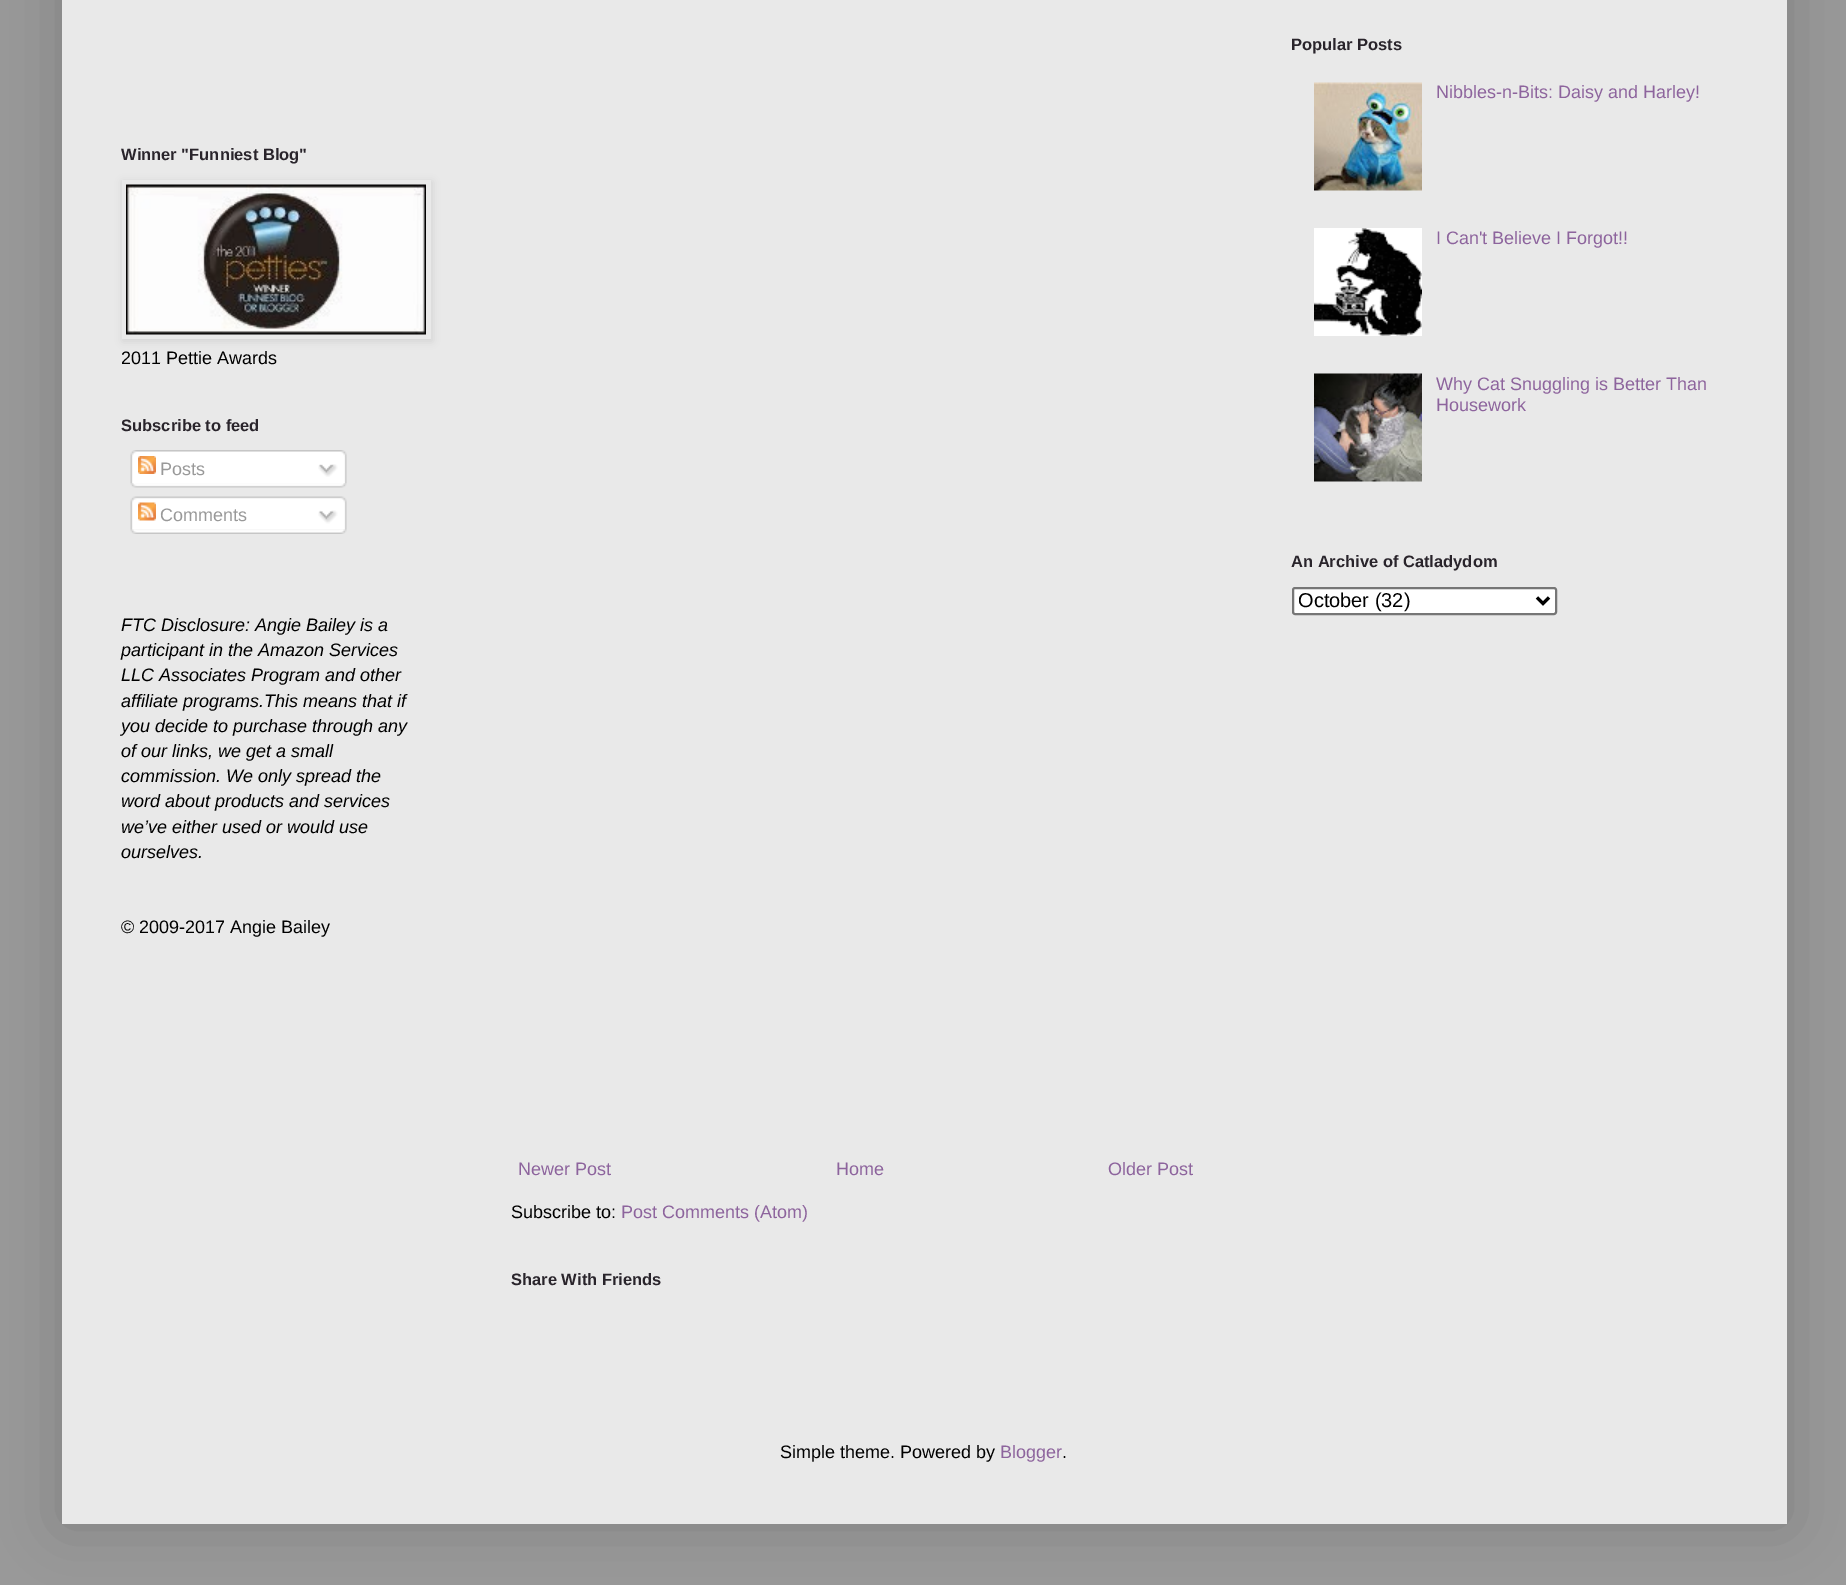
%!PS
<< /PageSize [1846 1585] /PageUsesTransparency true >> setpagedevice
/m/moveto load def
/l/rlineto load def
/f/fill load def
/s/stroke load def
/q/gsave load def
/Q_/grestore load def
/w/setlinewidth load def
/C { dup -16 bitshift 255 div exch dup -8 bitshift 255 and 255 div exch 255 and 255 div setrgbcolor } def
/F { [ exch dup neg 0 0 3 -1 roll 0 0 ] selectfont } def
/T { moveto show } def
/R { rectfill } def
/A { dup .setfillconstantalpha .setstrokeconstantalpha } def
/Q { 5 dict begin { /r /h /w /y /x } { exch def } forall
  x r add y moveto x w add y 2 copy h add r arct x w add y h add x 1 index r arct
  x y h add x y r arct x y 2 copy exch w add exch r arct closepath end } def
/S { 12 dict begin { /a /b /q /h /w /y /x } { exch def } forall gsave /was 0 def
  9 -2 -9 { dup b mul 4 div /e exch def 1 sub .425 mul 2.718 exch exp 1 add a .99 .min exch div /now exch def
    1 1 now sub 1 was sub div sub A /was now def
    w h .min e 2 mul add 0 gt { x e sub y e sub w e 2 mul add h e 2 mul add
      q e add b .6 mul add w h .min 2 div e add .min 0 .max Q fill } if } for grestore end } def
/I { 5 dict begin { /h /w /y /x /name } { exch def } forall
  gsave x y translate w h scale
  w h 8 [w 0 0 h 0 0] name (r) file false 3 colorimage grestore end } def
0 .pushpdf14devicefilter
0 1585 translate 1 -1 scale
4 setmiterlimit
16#999999 C
0 0 1846 1585 R
16#000000 C
62 -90 1725 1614 0 30 .15 S
16#E9E9E9 C
62 0 1725 1524 R
/LiberationSans-Bold 16.5 F
16#29242B C
(Winner "Funniest Blog") 121 160 T
16#000000 C
123 182 309 159 0 4 .1 S
16#E9E9E9 C
122 180 309 159 R
(1.rgb) 126 184 300 151 I
/LiberationSans-Regular 18 F
16#000000 C
(2011 Pettie Awards) 121 364 T
/LiberationSans-Bold 16.5 F
16#29242B C
(Subscribe to feed) 121 431 T
(2.rgb) 130 450 217 33 I
(3.rgb) 138 456 18 18 I
/LiberationSans-Regular 18 F
16#999999 C
(Posts) 160 475 T
(4.rgb) 318 464 20 13 I
(5.rgb) 130 483 217 5 I
(6.rgb) 130 496 217 34 I
(7.rgb) 138 502 18 19 I
(Comments) 160 521 T
(8.rgb) 318 510 20 14 I
(9.rgb) 130 529 217 5 I
/LiberationSans-Italic 18 F
16#000000 C
(FTC Disclosure: Angie Bailey is a) 121 631 T
(participant in the Amazon Services) 121 656 T
(LLC Associates Program and other) 121 681 T
(affiliate programs.This means that if) 121 707 T
(you decide to purchase through any) 121 732 T
(of our links, we get a small) 121 757 T
(commission. We only spread the) 121 782 T
(word about products and services) 121 807 T
(we’ve either used or would use) 121 833 T
(ourselves.) 121 858 T
/LiberationSans-Regular 18 F
(© 2009-2017 Angie Bailey) 121 933 T
/LiberationSans-Bold 16.5 F
16#29242B C
(Popular Posts) 1291 50 T
(10.rgb) 1314 82 108 109 I
/LiberationSans-Regular 18 F
16#8D649D C
(Nibbles-n-Bits: Daisy and Harley!) 1436 98 T
(11.rgb) 1314 228 108 108 I
(I Can't Believe I Forgot!!) 1436 244 T
(12.rgb) 1314 373 108 109 I
(Why Cat Snuggling is Better Than) 1436 390 T
(Housework) 1436 411 T
/LiberationSans-Bold 16.5 F
16#29242B C
(An Archive of Catladydom) 1291 567 T
16#FFFFFF C
1293 588 263 26 2 Q q f Q_
16#767676 C
2 w
s
16#000000 C
3 w
1537 597.5 m 6 6 l 6 -6 l s
/LiberationSans-Regular 20 F
(October \(32\)) 1298 607 T
/LiberationSans-Regular 18 F
16#8D649D C
(Newer Post) 518 1175 T
(Home) 836 1175 T
(Older Post) 1108 1175 T
16#000000 C
(Subscribe to:) 511 1218 T
16#8D649D C
(Post Comments \(Atom\)) 621 1218 T
/LiberationSans-Bold 16.5 F
16#29242B C
(Share With Friends) 511 1285 T
/LiberationSans-Regular 18 F
16#000000 C
(Simple theme. Powered by) 780 1458 T
16#8D649D C
(Blogger) 1000 1458 T
16#000000 C
(.) 1062 1458 T
.poppdf14devicefilter showpage
